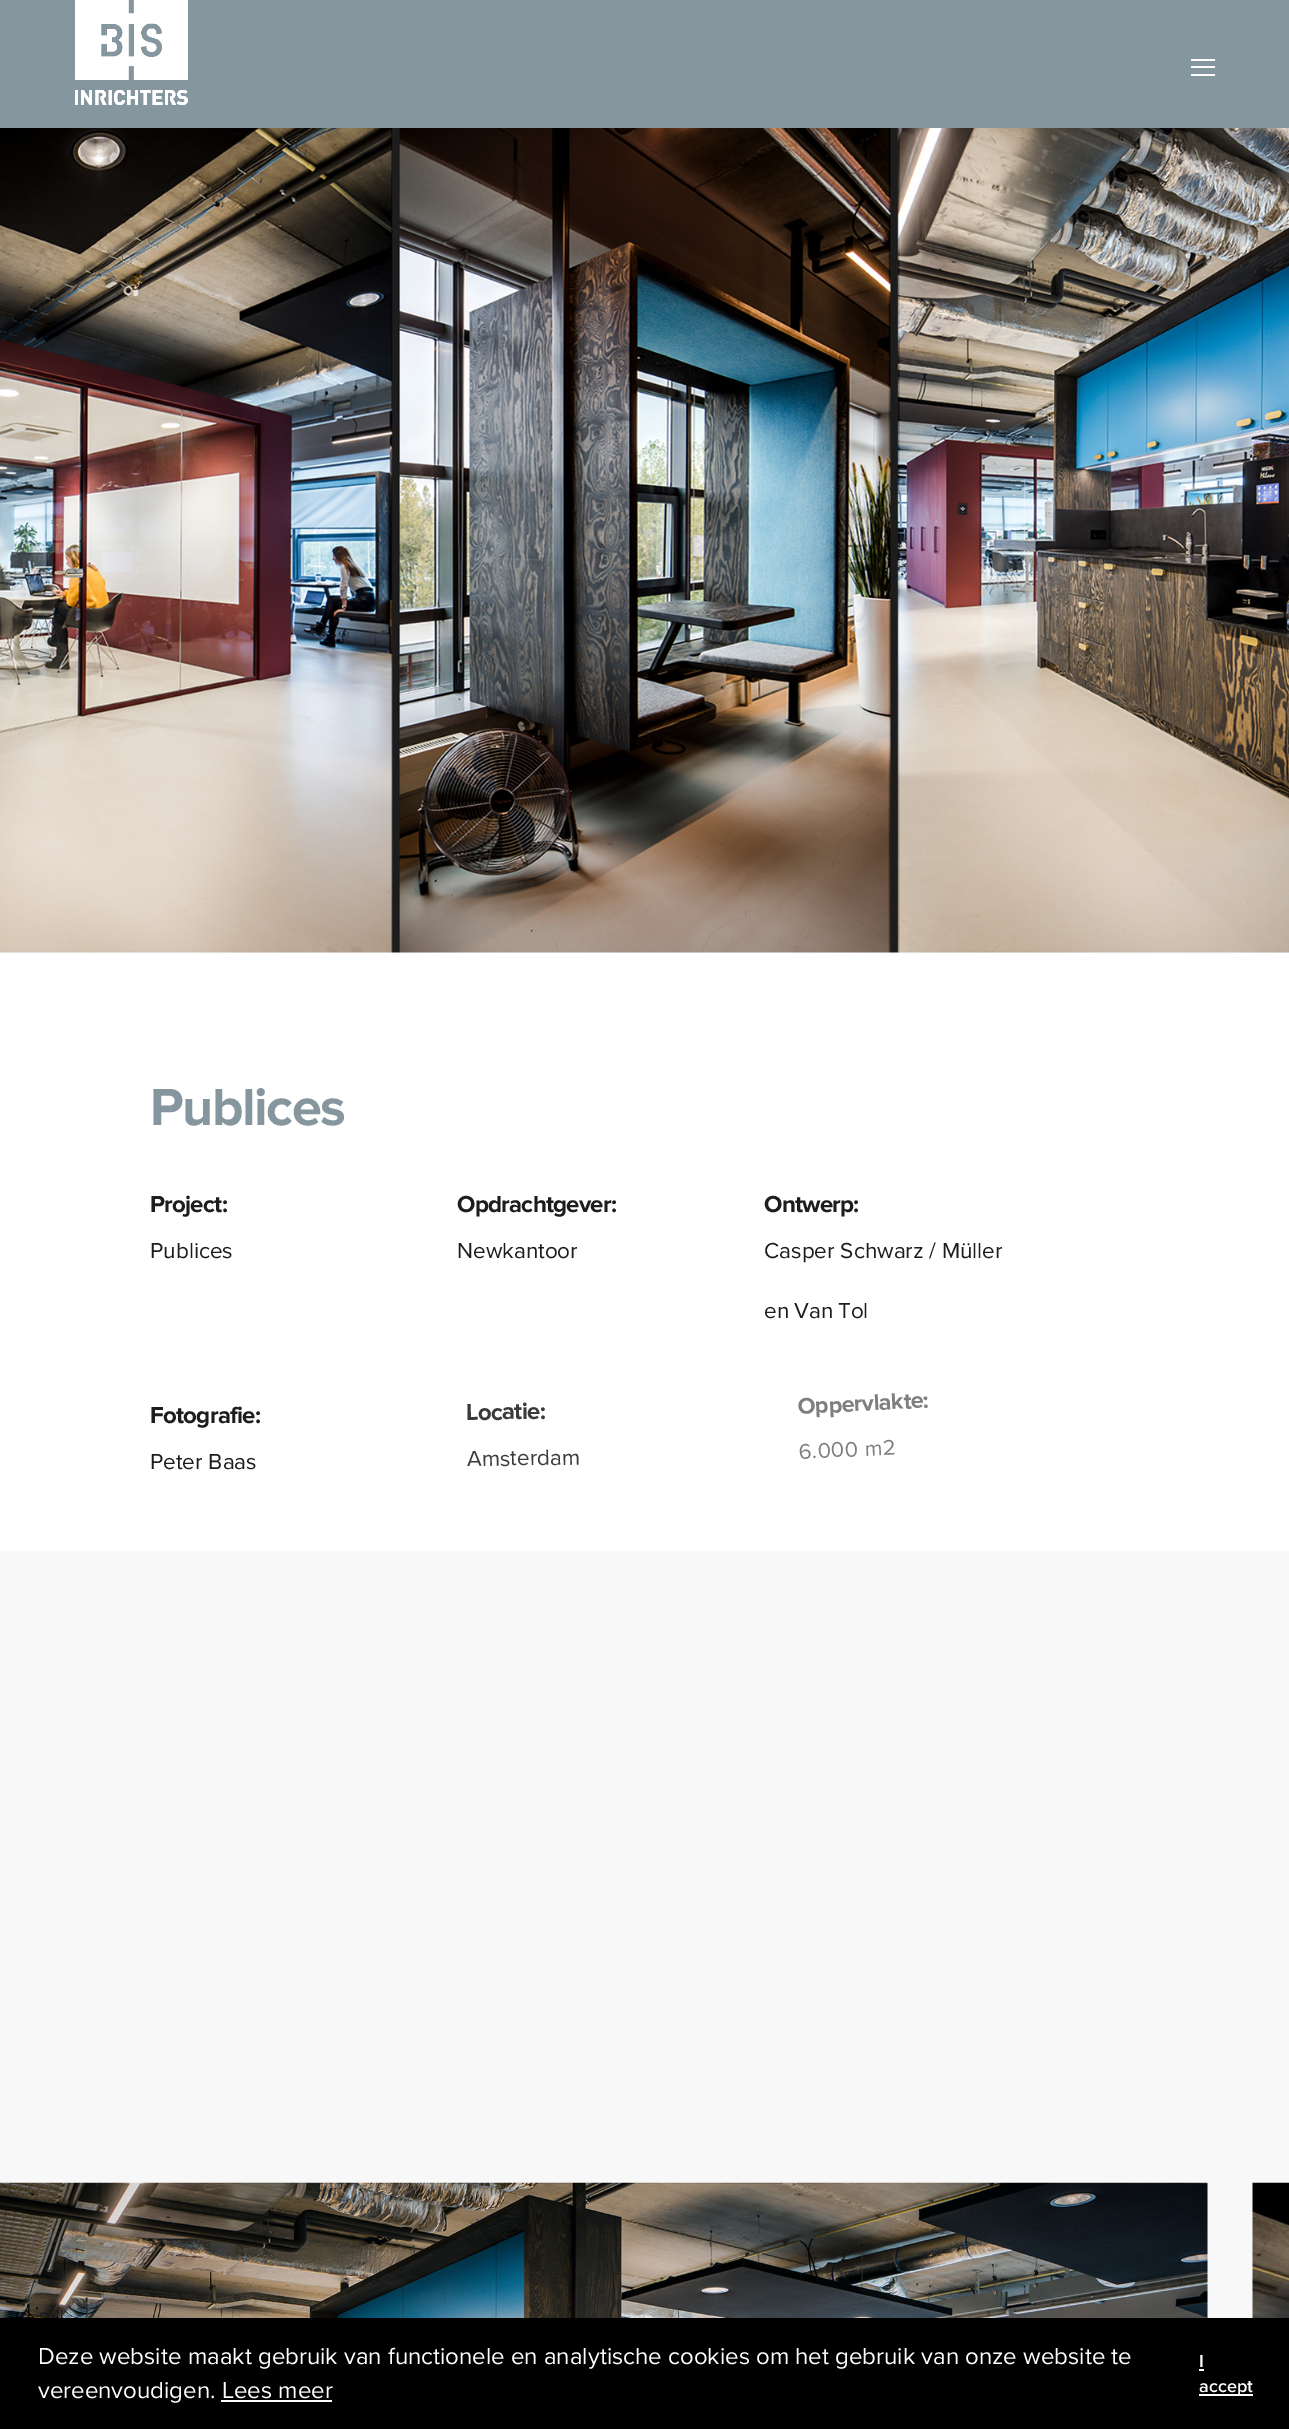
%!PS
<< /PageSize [1289 2429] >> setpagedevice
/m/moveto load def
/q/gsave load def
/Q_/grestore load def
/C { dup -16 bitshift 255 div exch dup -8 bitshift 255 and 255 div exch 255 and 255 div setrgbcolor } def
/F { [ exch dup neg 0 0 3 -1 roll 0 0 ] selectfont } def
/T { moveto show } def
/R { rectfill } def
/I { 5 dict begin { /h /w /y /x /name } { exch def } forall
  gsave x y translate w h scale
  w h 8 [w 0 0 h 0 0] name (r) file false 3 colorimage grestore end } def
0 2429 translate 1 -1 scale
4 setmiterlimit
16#FFFFFF C
0 0 1289 2429 R
16#85969F C
0 0 1289 128 R
(1.rgb) 75 0 113 105 I
(2.rgb) 75 0 113 105 I
16#FFFFFF C
1191 59 24 2 R
1191 66 24 2 R
1191 74 24 2 R
(3.rgb) 0 128 1289 825 I
/ProximaNova-Bold 54 F
16#85969F C
150 1125 m -1.5 0 (Publices) ashow
/ProximaNova-Bold 24 F
16#1D1D1B C
150 1212 m -.75 0 (Project:) ashow
/ProximaNova-Regular 22.5 F
(Publices) 150 1258 T
/ProximaNova-Bold 24 F
457 1212 m -.75 0 (Opdrachtgever:) ashow
/ProximaNova-Regular 22.5 F
(Newkantoor) 457 1258 T
/ProximaNova-Bold 24 F
764 1212 m -.75 0 (Ontwerp:) ashow
/ProximaNova-Regular 22.5 F
(Casper Schwarz / Müller) 764 1258 T
764 1318 m -1 0 32 (en Van Tol) widthshow
/ProximaNova-Bold 24 F
150 1423 m -.75 0 (Fotografie:) ashow
/ProximaNova-Regular 22.5 F
(Peter Baas) 150 1469 T
/ProximaNova-Bold 24 F
16#3A3A38 C
q 466 1420 translate -.8 rotate 0 0 m -.75 0 (Locatie:) ashow Q_
/ProximaNova-Regular 22.5 F
q 467 1466 translate -.8 rotate 0 0 m (Amsterdam) show Q_
/ProximaNova-Bold 23.5 F
16#7F7F7E C
q 798 1414 translate -2.8 rotate 0 0 m -.5 0 (Oppervlakte:) ashow Q_
/ProximaNova-Regular 22 F
q 799 1459 translate -2.8 rotate 0 0 m .25 0 (6.000 m2) ashow Q_
16#F8F8F8 C
0 1551 1289 632 R
1207 2183 46 135 R
(4.rgb) 0 2182 1208 136 I
(5.rgb) 1252 2182 37 136 I
16#000000 C
0 2318 1289 111 R
/ProximaNova-Regular 24 F
16#FFFFFF C
(Deze website maakt gebruik van functionele en analytische cookies om het gebruik van onze website te) 38 2364 T
(vereenvoudigen. Lees meer) 38 2398 T
221 2400 111 2 R
/ProximaNova-SemiBold 18 F
(I) 1199 2367 T
1199 2369 5 2 R
1199 2394 54 2 R
(accept) 1199 2392 T
showpage
